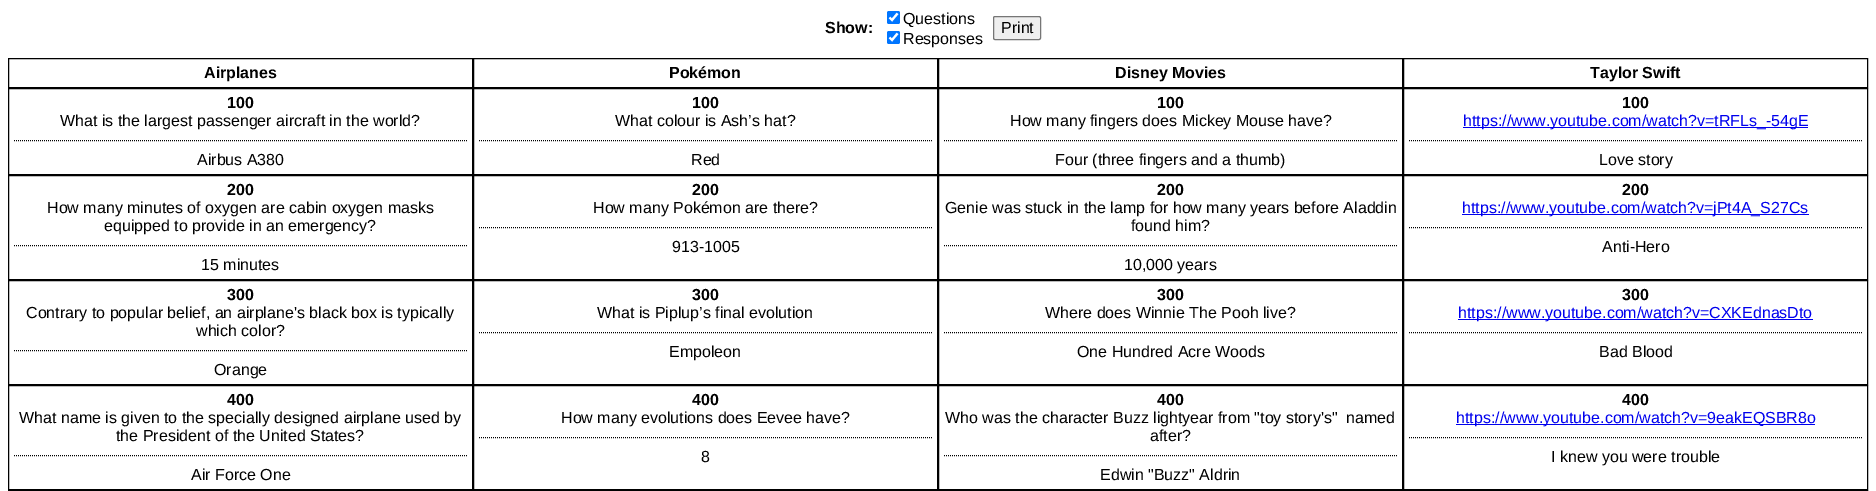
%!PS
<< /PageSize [1876 491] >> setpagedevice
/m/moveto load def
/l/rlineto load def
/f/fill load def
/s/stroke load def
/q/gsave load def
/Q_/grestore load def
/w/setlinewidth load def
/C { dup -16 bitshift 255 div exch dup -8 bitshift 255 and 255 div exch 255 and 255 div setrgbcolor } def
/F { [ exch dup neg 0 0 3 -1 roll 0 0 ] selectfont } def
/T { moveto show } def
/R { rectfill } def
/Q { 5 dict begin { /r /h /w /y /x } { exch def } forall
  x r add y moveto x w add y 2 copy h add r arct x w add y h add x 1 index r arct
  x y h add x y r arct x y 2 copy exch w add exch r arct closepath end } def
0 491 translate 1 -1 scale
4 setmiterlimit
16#FFFFFF C
0 0 1876 491 R
/LiberationSans-Bold 16 F
16#000000 C
(Show:) 825 33 T
16#0075FF C
887 11 13 13 2 Q f
16#FFFFFF C
2.1 w
889.5 17.5 m 2.5 2.5 l 5.5 -6.5 l s
/LiberationSans-Regular 16 F
16#000000 C
(Questions) 903 24 T
16#0075FF C
887 31 13 13 2 Q f
16#FFFFFF C
889.5 37.5 m 2.5 2.5 l 5.5 -6.5 l s
16#000000 C
(Responses) 903 44 T
16#EFEFEF C
993.5 16.5 47 23 1.5 Q q f Q_
16#767676 C
1 w
s
16#000000 C
(Print) 1001 33 T
8.5 58.5 464 29 rectstroke
/LiberationSans-Bold 16 F
(Airplanes) 204 78 T
473.5 58.5 464 29 rectstroke
(Pokémon) 669 78 T
938.5 58.5 464 29 rectstroke
(Disney Movies) 1115 78 T
1403.5 58.5 464 29 rectstroke
(Taylor Swift) 1590 78 T
8.5 88.5 464 86 rectstroke
(100) 227 108 T
/LiberationSans-Regular 16 F
(What is the largest passenger aircraft in the world?) 60 126 T
[1 1] 0 setdash
14 140.5 m 453 0 l s
(Airbus A380) 197 165 T
[] 0 setdash
473.5 88.5 464 86 rectstroke
/LiberationSans-Bold 16 F
(100) 692 108 T
/LiberationSans-Regular 16 F
(What colour is Ash’s hat?) 615 126 T
[1 1] 0 setdash
479 140.5 m 453 0 l s
(Red) 691 165 T
[] 0 setdash
938.5 88.5 464 86 rectstroke
/LiberationSans-Bold 16 F
(100) 1157 108 T
/LiberationSans-Regular 16 F
(How many fingers does Mickey Mouse have?) 1010 126 T
[1 1] 0 setdash
944 140.5 m 453 0 l s
(Four \(three fingers and a thumb\)) 1055 165 T
[] 0 setdash
1403.5 88.5 464 86 rectstroke
/LiberationSans-Bold 16 F
(100) 1622 108 T
16#0000EE C
1463 127 345 1 R
/LiberationSans-Regular 16 F
(https://www.youtube.com/watch?v=tRFLs_-54gE) 1463 126 T
16#000000 C
[1 1] 0 setdash
1409 140.5 m 453 0 l s
(Love story) 1599 165 T
[] 0 setdash
8.5 175.5 464 104 rectstroke
/LiberationSans-Bold 16 F
(200) 227 195 T
/LiberationSans-Regular 16 F
(How many minutes of oxygen are cabin oxygen masks) 47 213 T
(equipped to provide in an emergency?) 104 231 T
[1 1] 0 setdash
14 245.5 m 453 0 l s
(15 minutes) 201 270 T
[] 0 setdash
473.5 175.5 464 104 rectstroke
/LiberationSans-Bold 16 F
(200) 692 195 T
/LiberationSans-Regular 16 F
(How many Pokémon are there?) 593 213 T
[1 1] 0 setdash
479 227.5 m 453 0 l s
(913-1005) 672 252 T
[] 0 setdash
938.5 175.5 464 104 rectstroke
/LiberationSans-Bold 16 F
(200) 1157 195 T
/LiberationSans-Regular 16 F
(Genie was stuck in the lamp for how many years before Aladdin) 945 213 T
(found him?) 1131 231 T
[1 1] 0 setdash
944 245.5 m 453 0 l s
(10,000 years) 1124 270 T
[] 0 setdash
1403.5 175.5 464 104 rectstroke
/LiberationSans-Bold 16 F
(200) 1622 195 T
16#0000EE C
1462 214 347 1 R
/LiberationSans-Regular 16 F
(https://www.youtube.com/watch?v=jPt4A_S27Cs) 1462 213 T
16#000000 C
[1 1] 0 setdash
1409 227.5 m 453 0 l s
(Anti-Hero) 1602 252 T
[] 0 setdash
8.5 280.5 464 104 rectstroke
/LiberationSans-Bold 16 F
(300) 227 300 T
/LiberationSans-Regular 16 F
(Contrary to popular belief, an airplane's black box is typically) 26 318 T
(which color?) 196 336 T
[1 1] 0 setdash
14 350.5 m 453 0 l s
(Orange) 214 375 T
[] 0 setdash
473.5 280.5 464 104 rectstroke
/LiberationSans-Bold 16 F
(300) 692 300 T
/LiberationSans-Regular 16 F
(What is Piplup’s final evolution) 597 318 T
[1 1] 0 setdash
479 332.5 m 453 0 l s
(Empoleon) 669 357 T
[] 0 setdash
938.5 280.5 464 104 rectstroke
/LiberationSans-Bold 16 F
(300) 1157 300 T
/LiberationSans-Regular 16 F
(Where does Winnie The Pooh live?) 1045 318 T
[1 1] 0 setdash
944 332.5 m 453 0 l s
(One Hundred Acre Woods) 1077 357 T
[] 0 setdash
1403.5 280.5 464 104 rectstroke
/LiberationSans-Bold 16 F
(300) 1622 300 T
16#0000EE C
1458 319 355 1 R
/LiberationSans-Regular 16 F
(https://www.youtube.com/watch?v=CXKEdnasDto) 1458 318 T
16#000000 C
[1 1] 0 setdash
1409 332.5 m 453 0 l s
(Bad Blood) 1599 357 T
[] 0 setdash
8.5 385.5 464 104 rectstroke
/LiberationSans-Bold 16 F
(400) 227 405 T
/LiberationSans-Regular 16 F
(What name is given to the specially designed airplane used by) 19 423 T
(the President of the United States?) 116 441 T
[1 1] 0 setdash
14 455.5 m 453 0 l s
(Air Force One) 191 480 T
[] 0 setdash
473.5 385.5 464 104 rectstroke
/LiberationSans-Bold 16 F
(400) 692 405 T
/LiberationSans-Regular 16 F
(How many evolutions does Eevee have?) 561 423 T
[1 1] 0 setdash
479 437.5 m 453 0 l s
(8) 701 462 T
[] 0 setdash
938.5 385.5 464 104 rectstroke
/LiberationSans-Bold 16 F
(400) 1157 405 T
/LiberationSans-Regular 16 F
(Who was the character Buzz lightyear from "toy story's"  named) 945 423 T
(after?) 1150 441 T
[1 1] 0 setdash
944 455.5 m 453 0 l s
(Edwin "Buzz" Aldrin) 1100 480 T
[] 0 setdash
1403.5 385.5 464 104 rectstroke
/LiberationSans-Bold 16 F
(400) 1622 405 T
16#0000EE C
1456 424 359 1 R
/LiberationSans-Regular 16 F
(https://www.youtube.com/watch?v=9eakEQSBR8o) 1456 423 T
16#000000 C
[1 1] 0 setdash
1409 437.5 m 453 0 l s
(I knew you were trouble) 1551 462 T
[] 0 setdash
8.5 490.5 464 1 rectstroke
473.5 490.5 464 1 rectstroke
938.5 490.5 464 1 rectstroke
1403.5 490.5 464 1 rectstroke
showpage
